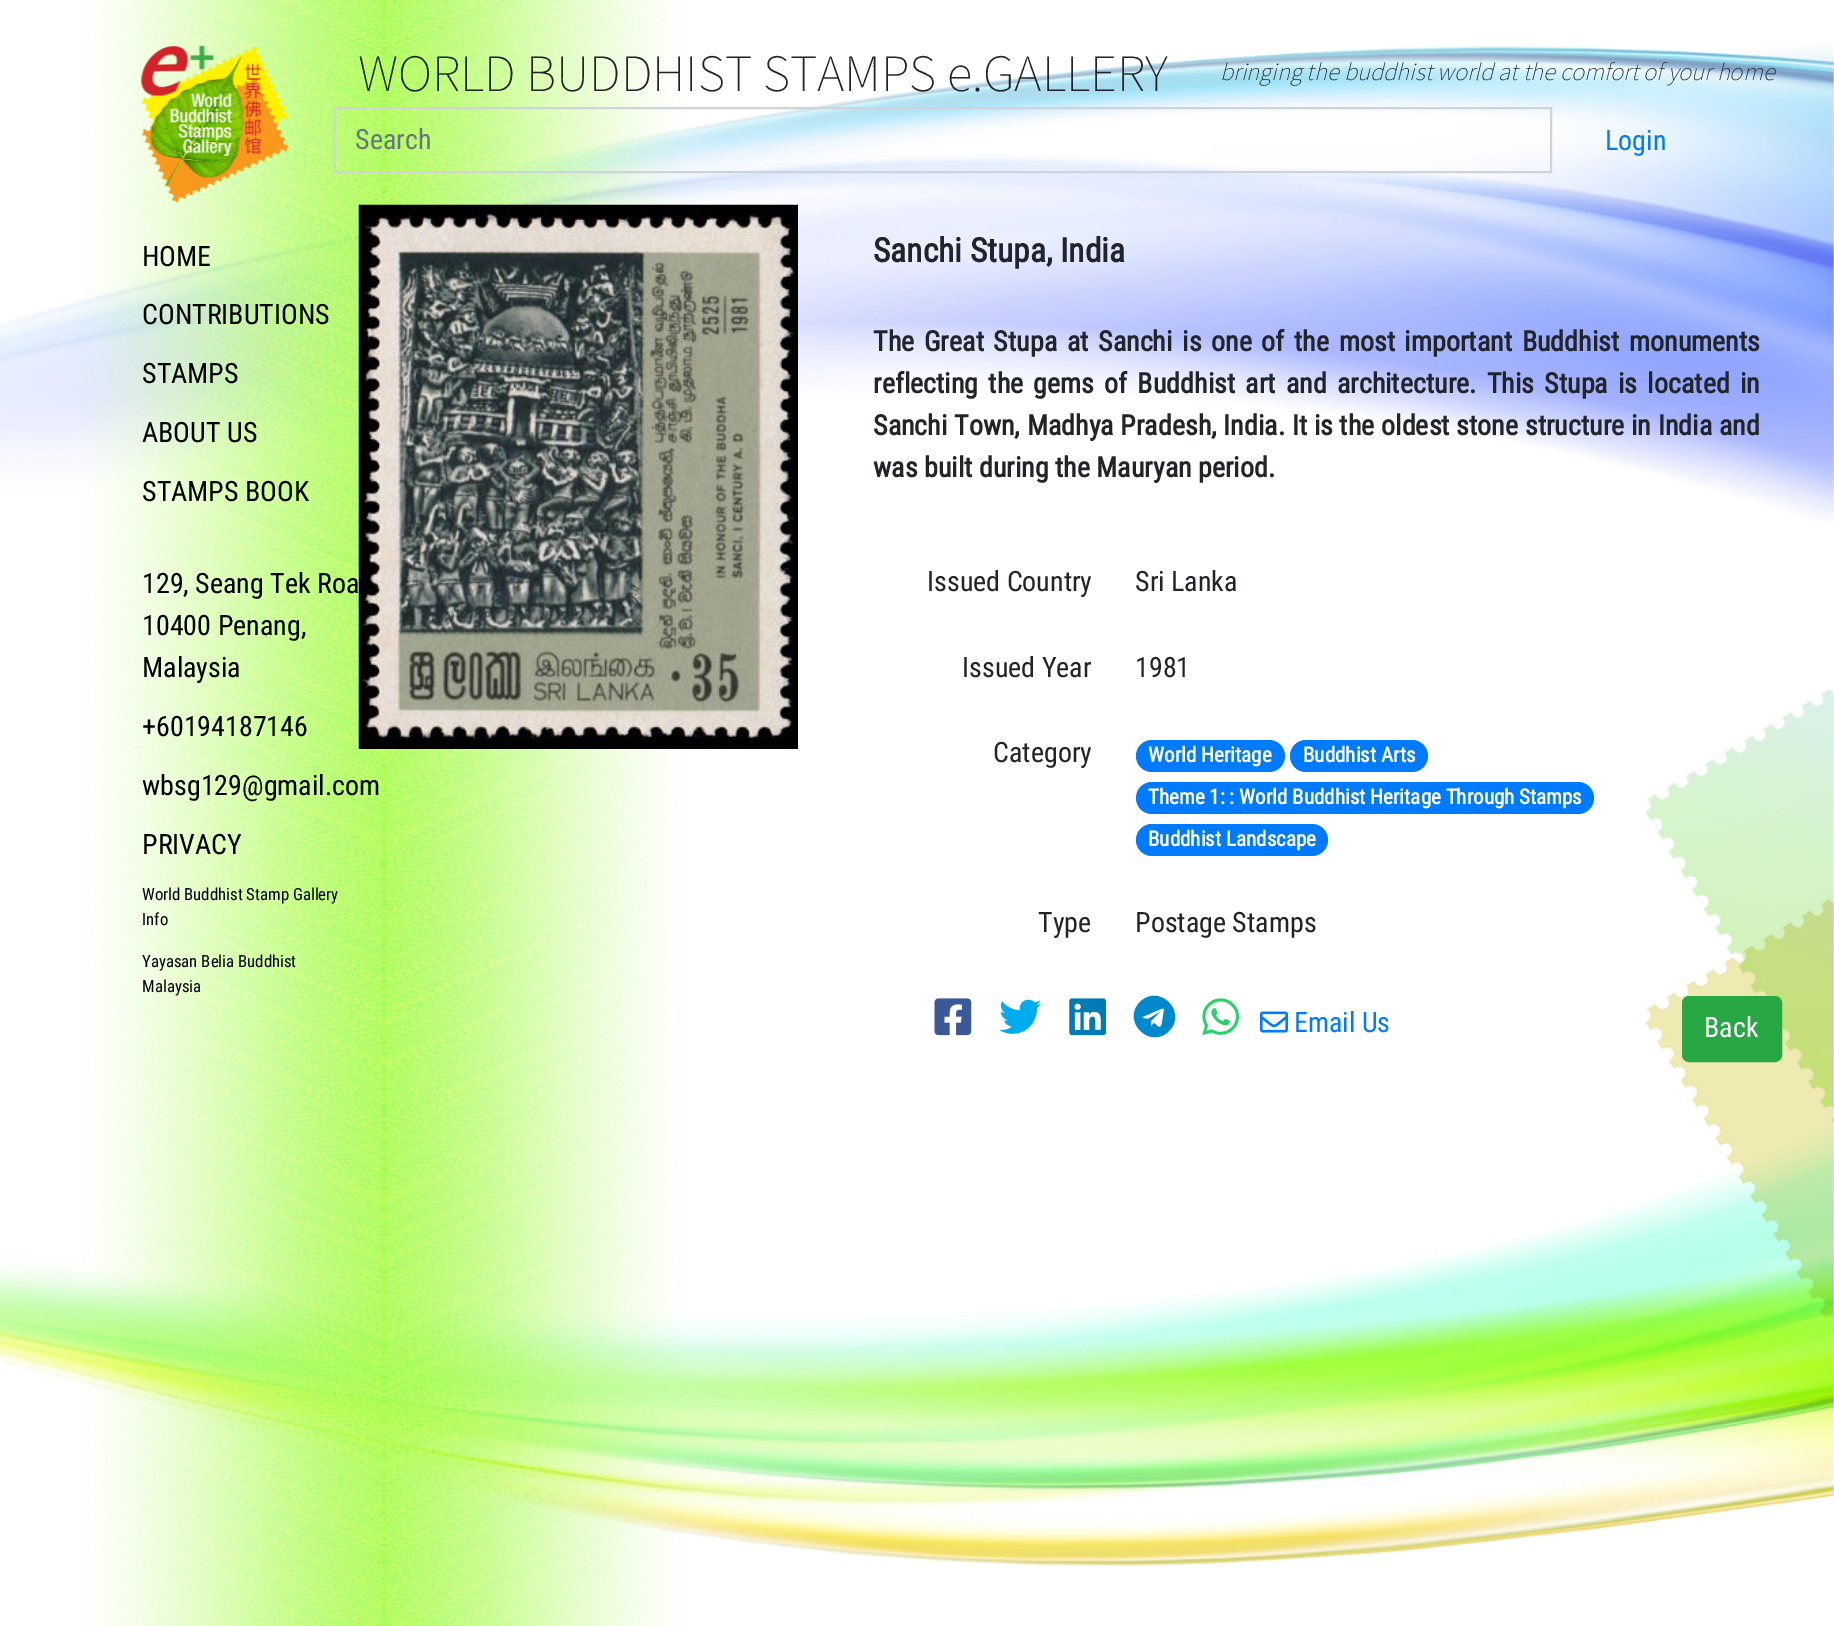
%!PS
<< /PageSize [1834 1626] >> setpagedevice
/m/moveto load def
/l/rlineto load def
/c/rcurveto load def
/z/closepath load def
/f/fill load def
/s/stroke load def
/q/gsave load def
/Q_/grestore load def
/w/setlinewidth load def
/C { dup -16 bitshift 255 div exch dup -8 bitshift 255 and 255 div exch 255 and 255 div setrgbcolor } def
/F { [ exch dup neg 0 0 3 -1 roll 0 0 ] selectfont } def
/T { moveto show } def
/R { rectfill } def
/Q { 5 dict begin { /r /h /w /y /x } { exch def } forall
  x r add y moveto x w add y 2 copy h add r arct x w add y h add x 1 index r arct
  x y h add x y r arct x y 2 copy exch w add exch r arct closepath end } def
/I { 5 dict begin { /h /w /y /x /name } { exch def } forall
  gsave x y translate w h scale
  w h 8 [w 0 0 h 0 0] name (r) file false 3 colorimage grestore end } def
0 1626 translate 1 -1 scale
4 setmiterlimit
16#FFFFFF C
0 0 1834 1626 R
(1.rgb) 0 0 1834 1626 I
(2.rgb) 140 45 150 158 I
/RobotoCondensed-Regular 28 F
16#000000 C
(HOME) 142 266 T
(CONTRIBUTIONS) 142 324 T
(STAMPS) 142 383 T
(ABOUT US) 142 442 T
(STAMPS BOOK) 142 501 T
(129, Seang Tek Roa) 142 593 T
(10400 Penang,) 142 635 T
(Malaysia) 142 677 T
(+60194187146) 142 736 T
(wbsg129@gmail.com) 142 795 T
(PRIVACY) 142 854 T
/RobotoCondensed-Regular 16.75 F
(World Buddhist Stamp Gallery) 142 900 T
(Info) 142 925 T
(Yayasan Belia Buddhist) 142 967 T
(Malaysia) 142 992 T
/NotoSansJP-Thin 47.6 F
16#212529 C
(WORLD BUDDHIST STAMPS e.GALLERY) 358 91 T
/NotoSansJP-ThinItalic 22.4 F
(bringing the buddhist world at the comfort of your home) 1220 80 T
16#CED4DA C
2 w
334 108 1217 64 rectstroke
/RobotoCondensed-Regular 28 F
16#6C757D C
(Search) 355 149 T
16#007BFF C
(Login) 1605 150 T
(3.rgb) 358 204 440 545 I
/RobotoCondensed-Bold 33.5 F
16#212529 C
(Sanchi Stupa, India) 873 262 T
/RobotoCondensed-Bold 28 F
873 351 m 3.25 0 32 (The Great Stupa at Sanchi is one of the most important Buddhist monuments) widthshow
873 393 m 3.75 0 32 (reflecting the gems of Buddhist art and architecture. This Stupa is located in) widthshow
873 435 m .25 0 32 (Sanchi Town, Madhya Pradesh, India. It is the oldest stone structure in India and) widthshow
(was built during the Mauryan period.) 873 477 T
/RobotoCondensed-Regular 28 F
(Issued Country) 927 591 T
(Sri Lanka) 1135 591 T
(Issued Year) 962 677 T
(1981) 1135 677 T
(Category) 993 762 T
16#007BFF C
1136 740 149 32 16 Q f
/RobotoCondensed-Bold 21 F
16#FFFFFF C
(World Heritage) 1148 762 T
16#007BFF C
1290 740 138 32 16 Q f
16#FFFFFF C
(Buddhist Arts) 1303 762 T
16#007BFF C
1136 782 458 32 16 Q f
16#FFFFFF C
(Theme 1: : World Buddhist Heritage Through Stamps) 1148 804 T
16#007BFF C
1136 824 192 32 16 Q f
16#FFFFFF C
(Buddhist Landscape) 1148 846 T
/RobotoCondensed-Regular 28 F
16#212529 C
(Type) 1038 932 T
(Postage Stamps) 1135 932 T
(4.rgb) 934 998 38 38 I
(5.rgb) 999 999 43 35 I
(6.rgb) 1069 998 37 38 I
16#0088CC C
1140 1002 m 19 -19 48 10 29 29 c -19 19 -48 -10 -29 -29 c z 1164 1010 m 1 -4 -7 1 -8 1 c -9 4 l -8 3 -5 3 1 4 c 12 -7 l -9 9 l 0 5 l 3 -3 l 5 4 6 7 8 0 c z f
(7.rgb) 1202 998 37 38 I
(8.rgb) 1260 1011 28 22 I
16#007BFF C
(Email Us) 1294 1032 T
16#28A745 C
1683 997 98 64 6 Q q f Q_
s
16#FFFFFF C
(Back) 1704 1037 T
showpage
